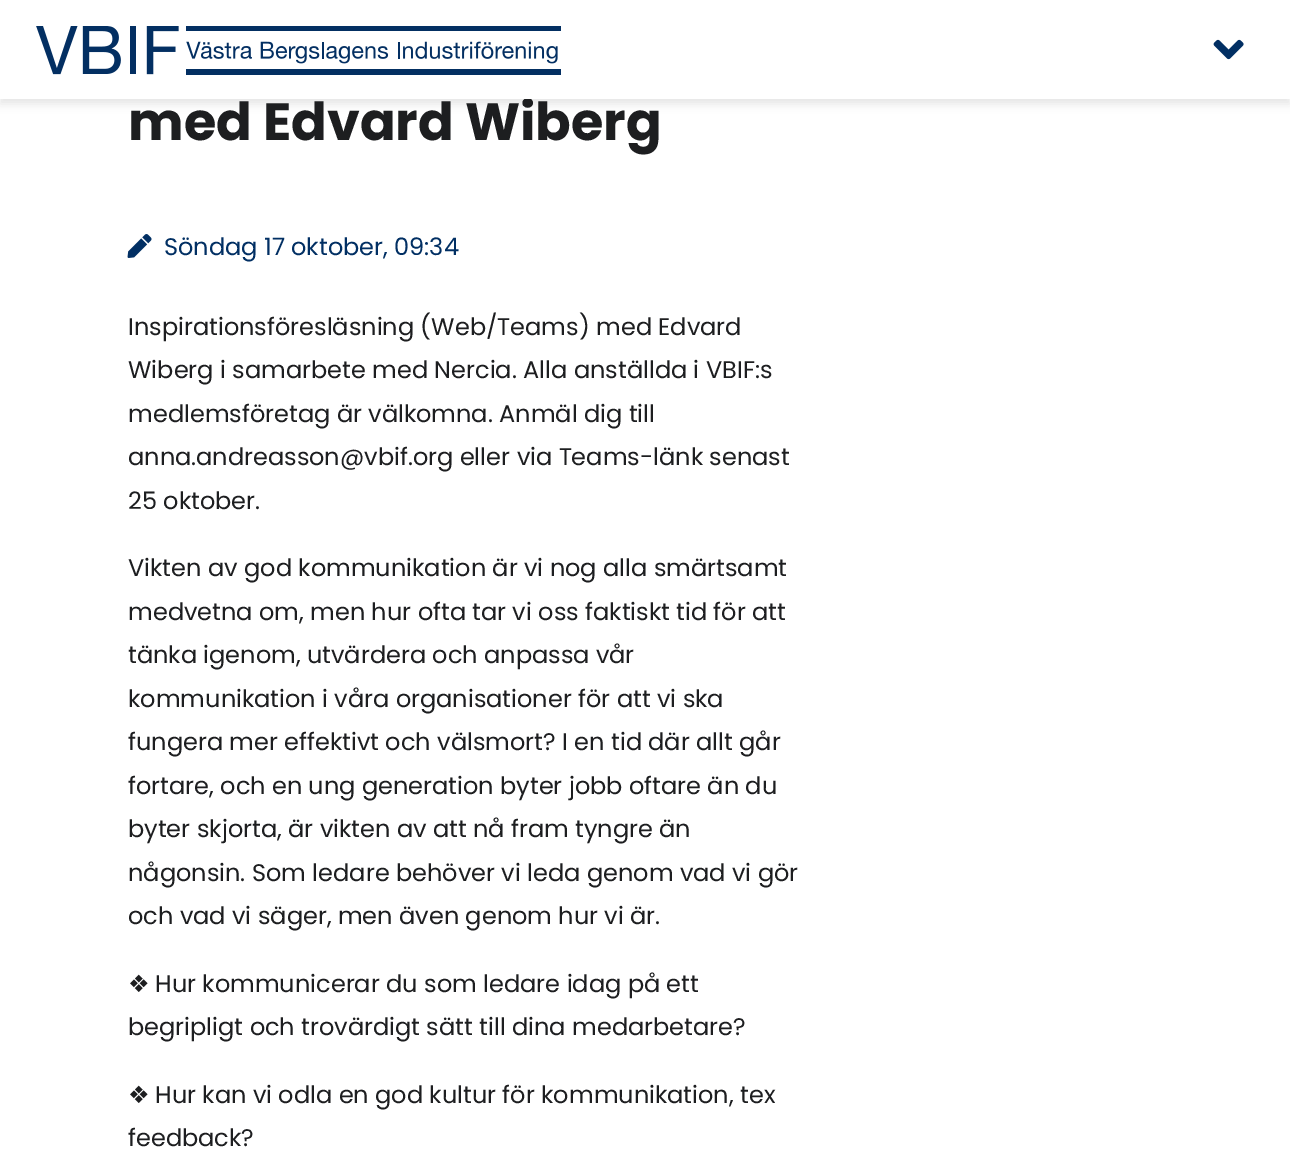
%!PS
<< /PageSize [1290 1175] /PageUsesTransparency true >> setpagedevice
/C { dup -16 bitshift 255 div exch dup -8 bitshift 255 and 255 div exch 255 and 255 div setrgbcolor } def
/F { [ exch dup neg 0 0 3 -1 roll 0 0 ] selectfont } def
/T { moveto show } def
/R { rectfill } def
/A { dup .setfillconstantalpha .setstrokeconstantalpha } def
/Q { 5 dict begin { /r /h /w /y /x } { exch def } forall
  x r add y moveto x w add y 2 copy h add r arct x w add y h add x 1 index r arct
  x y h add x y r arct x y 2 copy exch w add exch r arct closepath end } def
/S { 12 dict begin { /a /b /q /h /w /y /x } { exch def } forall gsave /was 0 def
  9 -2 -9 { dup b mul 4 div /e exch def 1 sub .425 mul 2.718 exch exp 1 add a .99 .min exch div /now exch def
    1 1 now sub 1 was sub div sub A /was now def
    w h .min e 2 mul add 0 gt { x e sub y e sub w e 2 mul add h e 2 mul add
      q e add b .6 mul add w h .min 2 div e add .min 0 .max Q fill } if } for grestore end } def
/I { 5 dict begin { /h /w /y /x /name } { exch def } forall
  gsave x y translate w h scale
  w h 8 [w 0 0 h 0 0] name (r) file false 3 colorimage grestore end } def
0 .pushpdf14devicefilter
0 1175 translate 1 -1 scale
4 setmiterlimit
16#FFFFFF C
0 0 1290 1175 R
16#000000 C
0 5 1290 99 0 4.5 .1 S
/Poppins-Bold 52.5 F
16#1D1E20 C
(med Edvard Wiberg) 128 140 T
16#FFFFFF C
0 0 1290 99 R
(1.rgb) 36 26 525 49 I
(2.rgb) 1213 39 31 21 I
(3.rgb) 127 234 25 24 I
/Poppins-Regular 24 F
16#012F63 C
(Söndag 17 oktober, 09:34) 164 255 T
16#1D1E20 C
(Inspirationsföresläsning \(Web/Teams\) med Edvard) 128 335 T
(Wiberg i samarbete med Nercia. Alla anställda i VBIF:s) 128 378 T
(medlemsföretag är välkomna. Anmäl dig till) 128 422 T
(anna.andreasson@vbif.org eller via Teams-länk senast) 128 465 T
(25 oktober.) 128 509 T
(Vikten av god kommunikation är vi nog alla smärtsamt) 128 576 T
(medvetna om, men hur ofta tar vi oss faktiskt tid för att) 128 620 T
(tänka igenom, utvärdera och anpassa vår) 128 663 T
(kommunikation i våra organisationer för att vi ska) 128 707 T
(fungera mer effektivt och välsmort? I en tid där allt går) 128 750 T
(fortare, och en ung generation byter jobb oftare än du) 128 794 T
(byter skjorta, är vikten av att nå fram tyngre än) 128 837 T
(någonsin. Som ledare behöver vi leda genom vad vi gör) 128 881 T
(och vad vi säger, men även genom hur vi är.) 128 924 T
/DejaVuSans-Regular 24 F
(❖) 128 992 T
/Poppins-Regular 24 F
(Hur kommunicerar du som ledare idag på ett) 155 992 T
(begripligt och trovärdigt sätt till dina medarbetare?) 128 1035 T
/DejaVuSans-Regular 24 F
(❖) 128 1103 T
/Poppins-Regular 24 F
(Hur kan vi odla en god kultur för kommunikation, tex) 155 1103 T
(feedback?) 128 1146 T
.poppdf14devicefilter showpage
